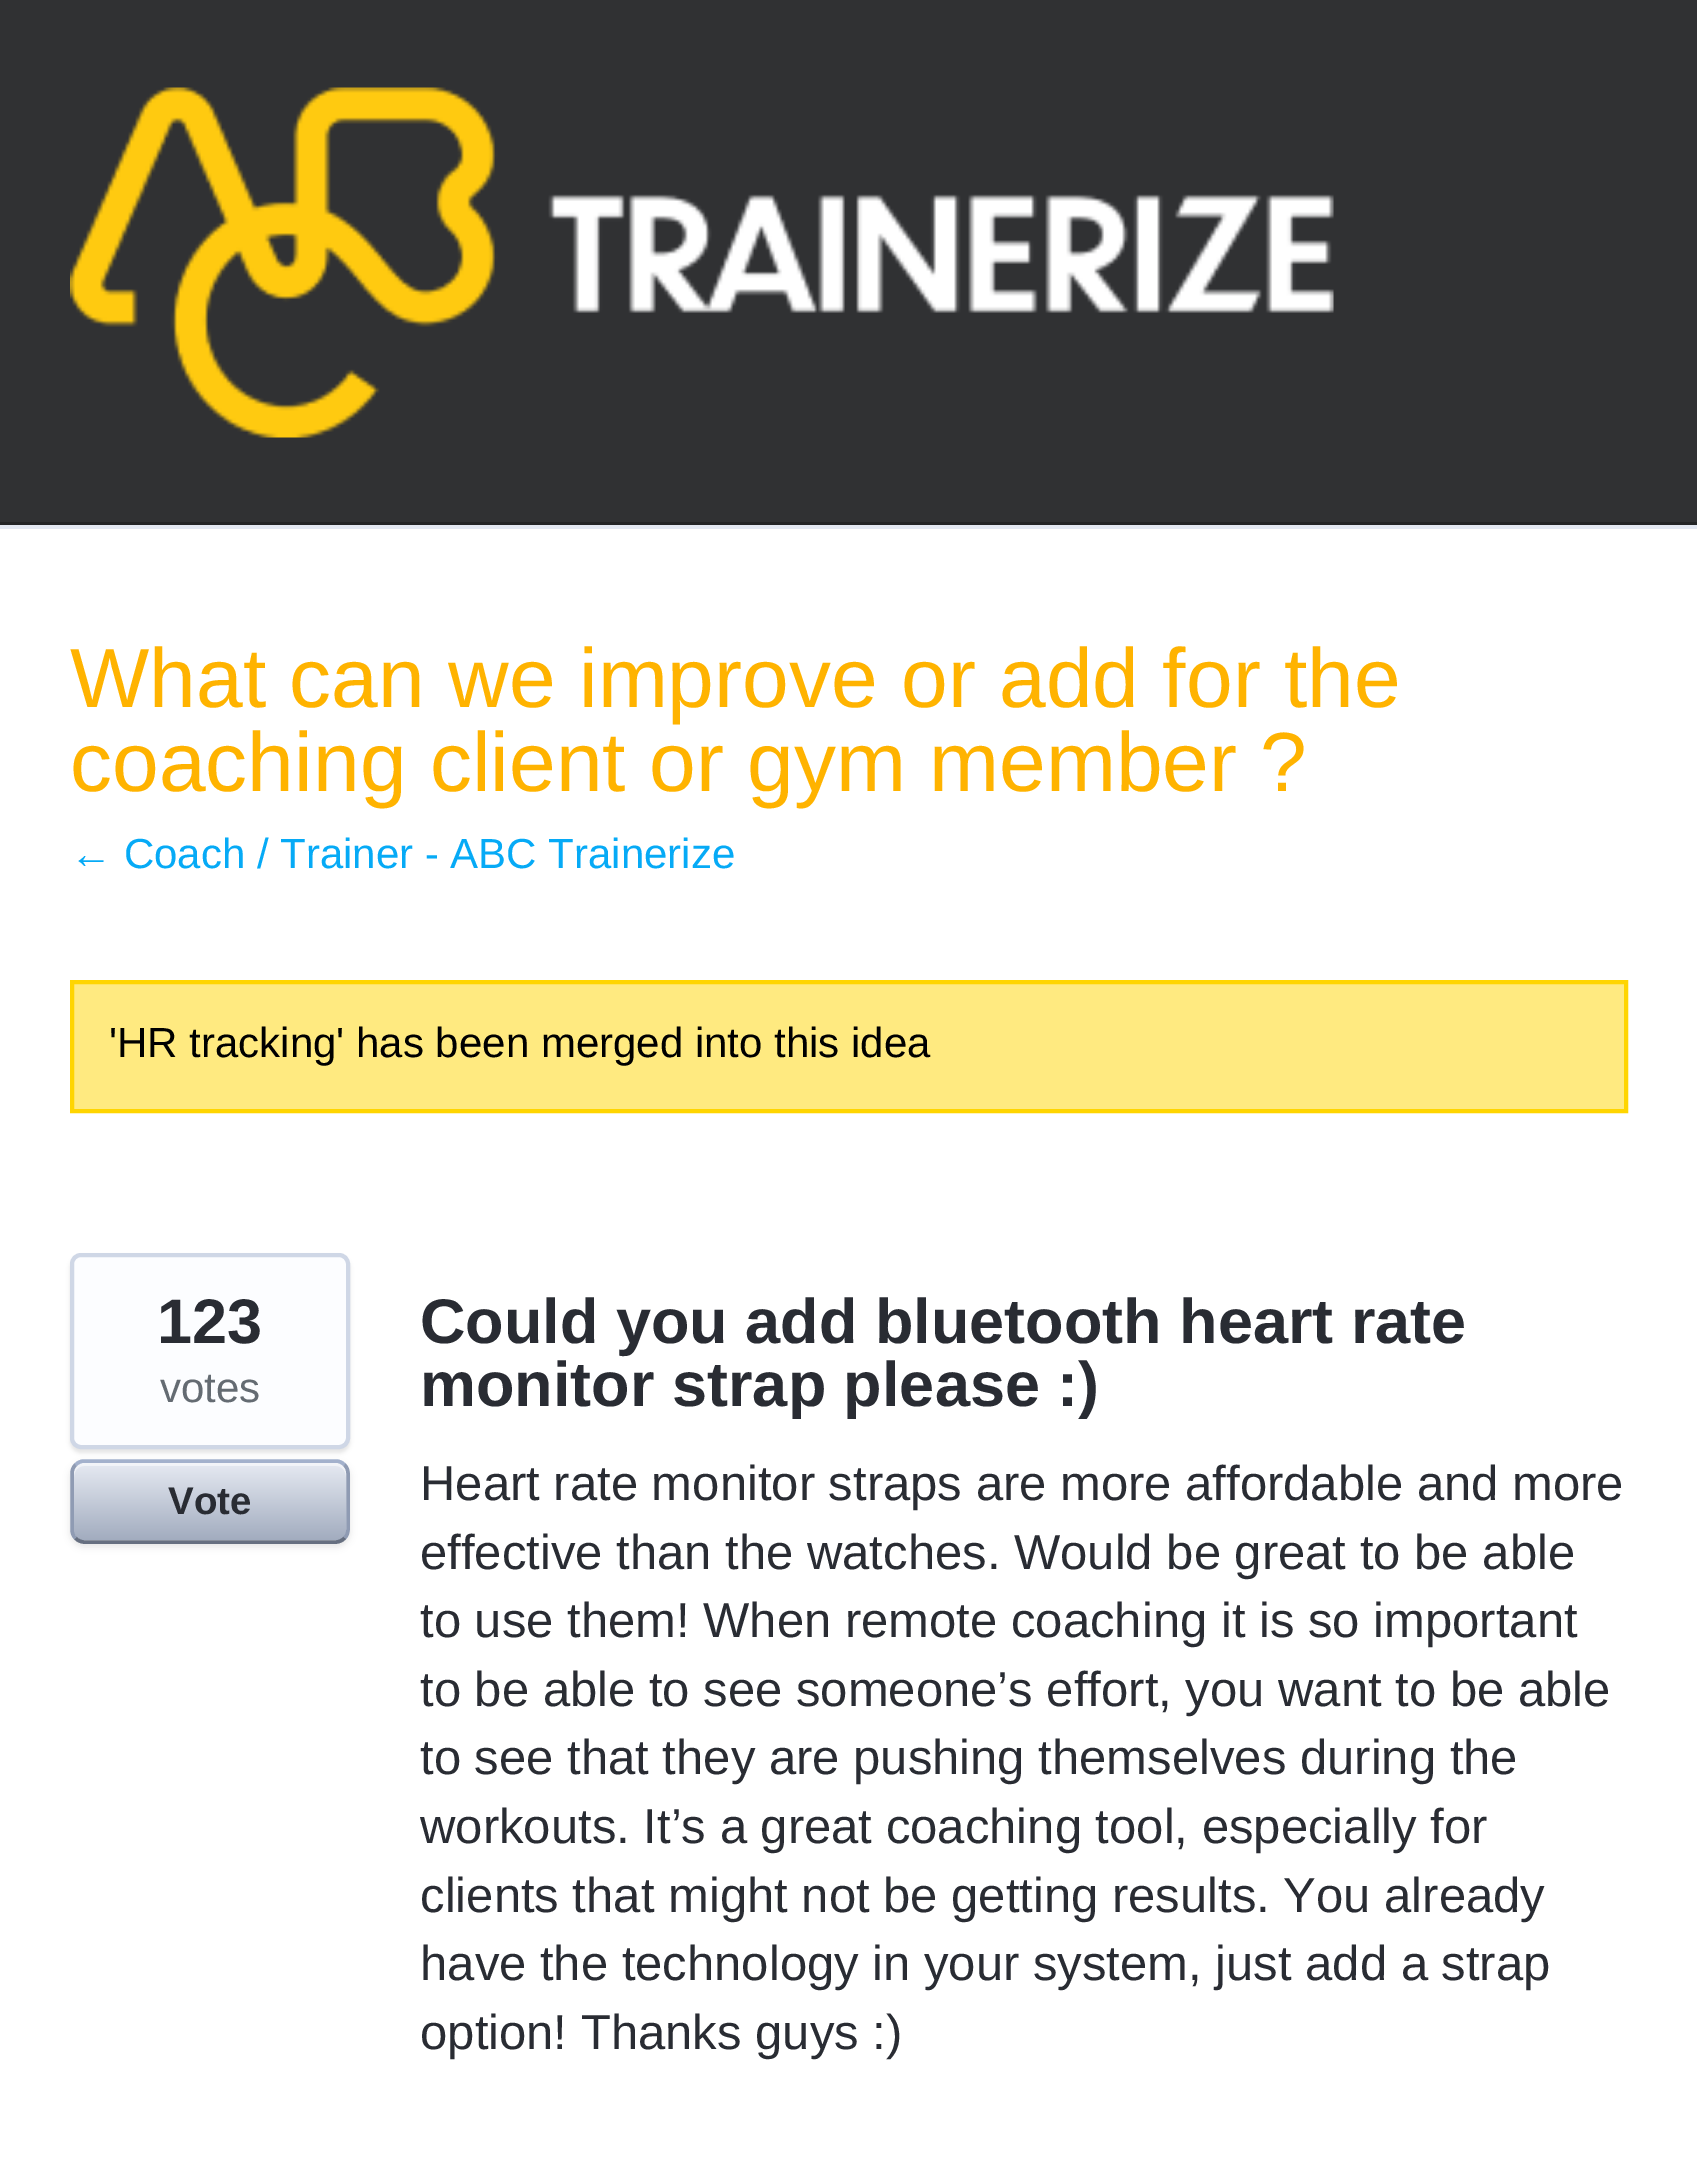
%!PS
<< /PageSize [1697 2171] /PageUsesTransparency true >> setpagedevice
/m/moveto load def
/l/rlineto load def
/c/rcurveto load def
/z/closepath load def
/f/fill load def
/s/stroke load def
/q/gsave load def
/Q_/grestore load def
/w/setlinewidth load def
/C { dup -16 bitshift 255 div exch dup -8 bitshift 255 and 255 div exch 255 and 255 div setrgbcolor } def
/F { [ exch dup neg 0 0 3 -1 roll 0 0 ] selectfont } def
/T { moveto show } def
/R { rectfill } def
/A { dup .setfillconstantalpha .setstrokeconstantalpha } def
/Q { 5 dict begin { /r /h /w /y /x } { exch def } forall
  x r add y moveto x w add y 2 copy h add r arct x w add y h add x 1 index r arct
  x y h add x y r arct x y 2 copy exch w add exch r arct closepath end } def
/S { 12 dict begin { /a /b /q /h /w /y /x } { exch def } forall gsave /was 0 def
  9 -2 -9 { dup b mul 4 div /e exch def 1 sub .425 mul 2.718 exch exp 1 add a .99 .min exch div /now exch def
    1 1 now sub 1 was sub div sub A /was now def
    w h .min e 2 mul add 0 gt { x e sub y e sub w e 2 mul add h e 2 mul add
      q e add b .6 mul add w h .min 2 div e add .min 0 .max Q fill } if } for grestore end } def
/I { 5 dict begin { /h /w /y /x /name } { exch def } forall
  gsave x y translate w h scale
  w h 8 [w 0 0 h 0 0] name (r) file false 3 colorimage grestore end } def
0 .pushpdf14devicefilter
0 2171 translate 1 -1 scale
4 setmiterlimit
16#303133 C
0 0 1697 2171 R
16#242526 C
0 522 1697 3 R
(1.rgb) 70 87 1264 351 I
16#FFFFFF C
0 529 1697 1642 R
16#E3E8F2 C
0 525 1697 4 R
/LiberationSans-Regular 84 F
16#FFB300 C
(What can we improve or add for the) 70 707 T
(coaching client or gym member ?) 70 791 T
/LiberationSans-Regular 42 F
16#06AAF6 C
(← Coach / Trainer - ABC Trainerize) 70 868 T
16#FFEA80 C
72 982 m 1554 0 l 0 129 l -1554 0 l z q f Q_
16#FFD500 C
4 w
s
16#000000 C
('HR tracking' has been merged into this idea) 109 1057 T
70 1257 280 196 11 2 .1 S
16#FCFDFF C
72 1255 276 192 9 Q q f Q_
16#CFD7E6 C
s
/LiberationSans-Bold 63 F
16#292C33 C
(123) 157 1343 T
/LiberationSans-Regular 42 F
16#646B72 C
(votes) 160 1402 T
16#000000 C
70 1463 280 84 14 3.5 .1 S
q 74 1463 273 77 11 Q clip newpath
<< /ShadingType 2 /ColorSpace /DeviceRGB /Coords [74 1463 74 1540] /Extend [true true] /Function << /FunctionType 2 /Domain [0 1] /C0 [.902 .918 .949] /C1 [.635 .675 .749] /N 1 >> >> shfill Q_
0.5 A
16#FFFFFF C
84 1466 m 252 0 l 6 0 10 5 10 11 c 0 57 l 1 -2 1 -3 1 -5 c 0 -55 l 0 -6 -5 -11 -11 -11 c -251 0 l -6 0 -11 5 -11 11 c 0 3 l 0 -6 4 -11 10 -11 c z f
1 A
16#A3B1CC C
3.5 w
75.5 1465 m 2 -2.5 5.5 -4 8.5 -4 c 252 0 l 3 0 6.5 1.5 8.5 4 c s
16#8F9BB3 C
344.5 1465 m 2.5 2 3.5 5.5 3.5 8.5 c 0 56 l 0 3 -1 6.5 -3.5 8.5 c s
16#666F80 C
344.5 1538 m -2 2.5 -5.5 4 -8.5 4 c -252 0 l -3 0 -6.5 -1.5 -8.5 -4 c s
16#8F9BB3 C
75.5 1538 m -2.5 -2 -3.5 -5.5 -3.5 -8.5 c 0 -56 l 0 -3 1 -6.5 3.5 -8.5 c s
/LiberationSans-Bold 38.5 F
16#292C33 C
(Vote) 168 1514 T
/LiberationSans-Bold 63 F
(Could you add bluetooth heart rate) 420 1343 T
(monitor strap please :\)) 420 1406 T
/LiberationSans-Regular 49 F
(Heart rate monitor straps are more affordable and more) 420 1500 T
(effective than the watches. Would be great to be able) 420 1569 T
(to use them! When remote coaching it is so important) 420 1637 T
(to be able to see someone’s effort, you want to be able) 420 1706 T
(to see that they are pushing themselves during the) 420 1774 T
(workouts. It’s a great coaching tool, especially for) 420 1843 T
(clients that might not be getting results. You already) 420 1912 T
(have the technology in your system, just add a strap) 420 1980 T
(option! Thanks guys :\)) 420 2049 T
.poppdf14devicefilter showpage
